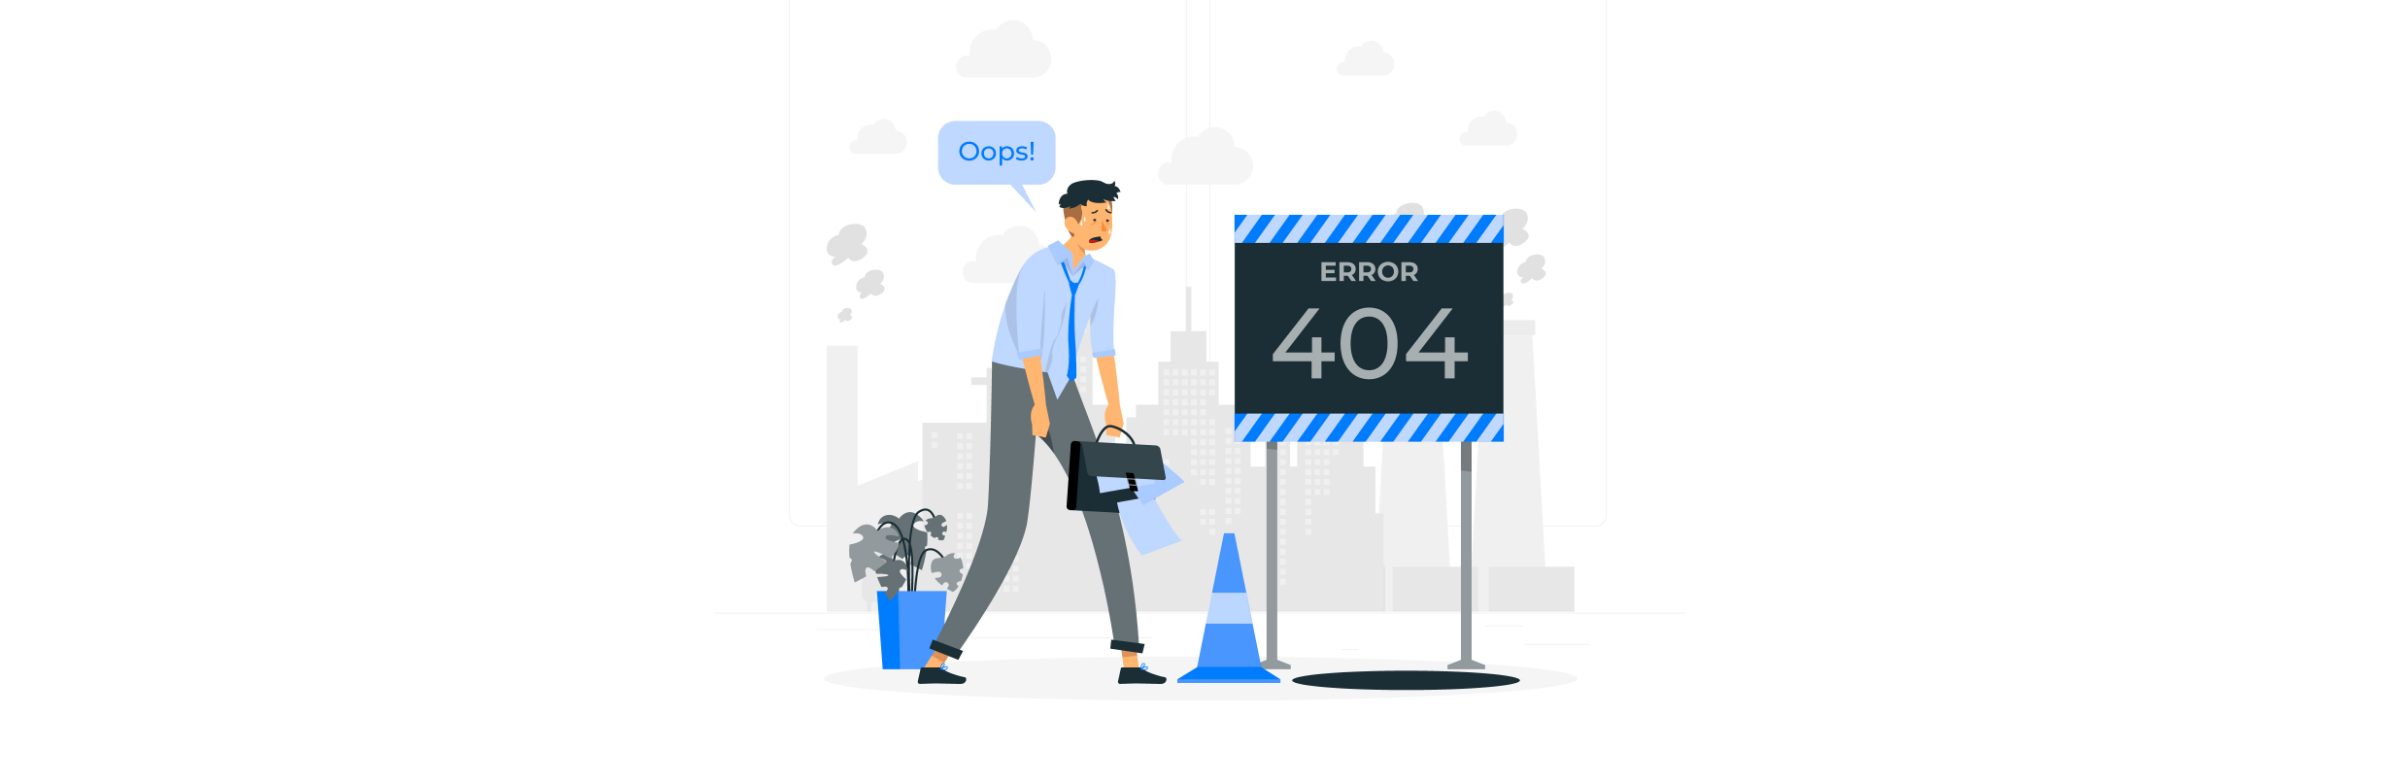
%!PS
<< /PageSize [2400 763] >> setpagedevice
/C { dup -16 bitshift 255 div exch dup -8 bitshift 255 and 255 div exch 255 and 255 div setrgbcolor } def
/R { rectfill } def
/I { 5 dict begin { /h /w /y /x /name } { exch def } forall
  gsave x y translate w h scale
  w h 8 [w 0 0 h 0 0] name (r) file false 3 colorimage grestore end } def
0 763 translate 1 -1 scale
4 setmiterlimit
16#FFFFFF C
0 0 2400 763 R
(1.rgb) 715 0 971 701 I
showpage
